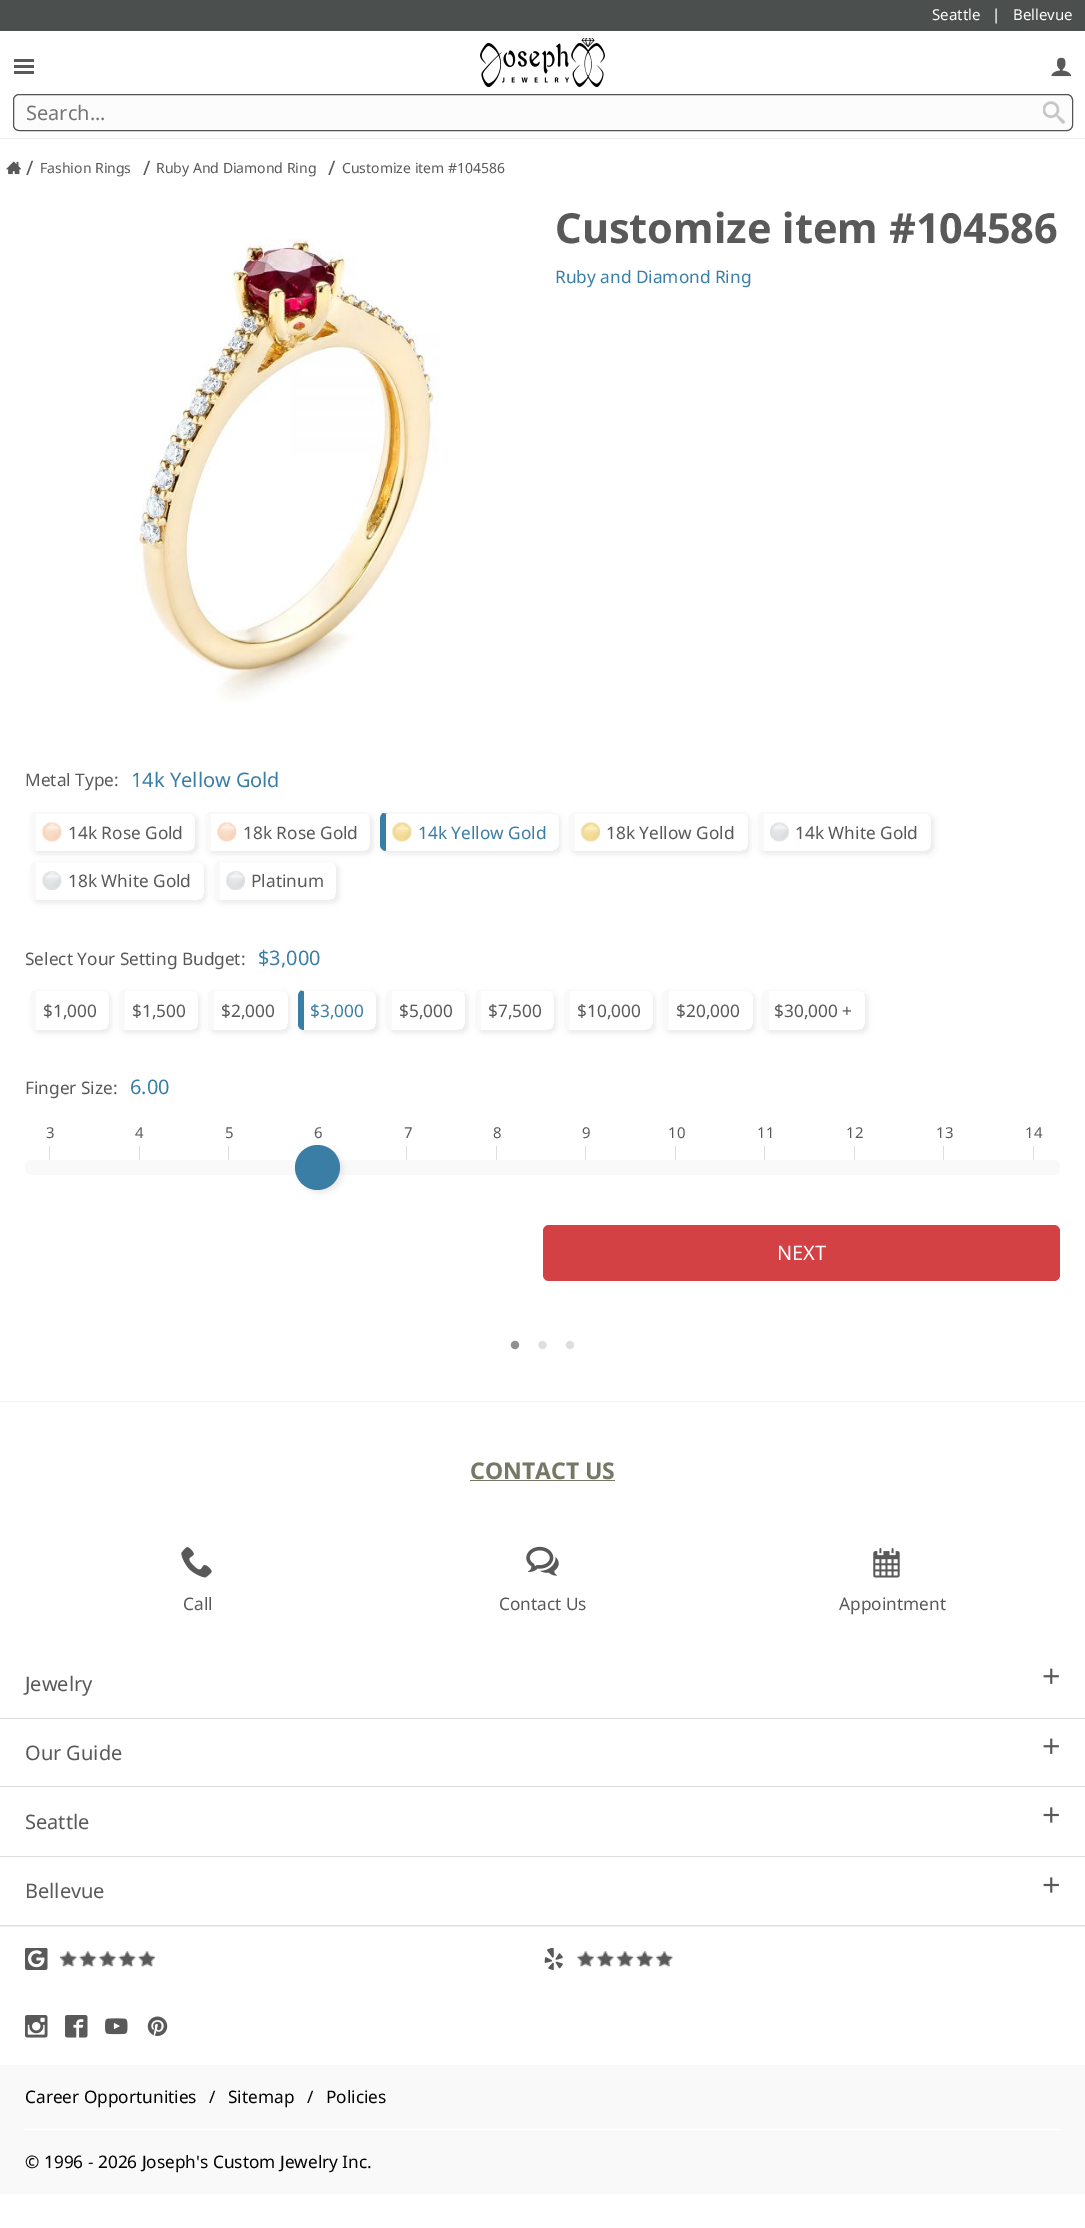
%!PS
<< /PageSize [1085 2228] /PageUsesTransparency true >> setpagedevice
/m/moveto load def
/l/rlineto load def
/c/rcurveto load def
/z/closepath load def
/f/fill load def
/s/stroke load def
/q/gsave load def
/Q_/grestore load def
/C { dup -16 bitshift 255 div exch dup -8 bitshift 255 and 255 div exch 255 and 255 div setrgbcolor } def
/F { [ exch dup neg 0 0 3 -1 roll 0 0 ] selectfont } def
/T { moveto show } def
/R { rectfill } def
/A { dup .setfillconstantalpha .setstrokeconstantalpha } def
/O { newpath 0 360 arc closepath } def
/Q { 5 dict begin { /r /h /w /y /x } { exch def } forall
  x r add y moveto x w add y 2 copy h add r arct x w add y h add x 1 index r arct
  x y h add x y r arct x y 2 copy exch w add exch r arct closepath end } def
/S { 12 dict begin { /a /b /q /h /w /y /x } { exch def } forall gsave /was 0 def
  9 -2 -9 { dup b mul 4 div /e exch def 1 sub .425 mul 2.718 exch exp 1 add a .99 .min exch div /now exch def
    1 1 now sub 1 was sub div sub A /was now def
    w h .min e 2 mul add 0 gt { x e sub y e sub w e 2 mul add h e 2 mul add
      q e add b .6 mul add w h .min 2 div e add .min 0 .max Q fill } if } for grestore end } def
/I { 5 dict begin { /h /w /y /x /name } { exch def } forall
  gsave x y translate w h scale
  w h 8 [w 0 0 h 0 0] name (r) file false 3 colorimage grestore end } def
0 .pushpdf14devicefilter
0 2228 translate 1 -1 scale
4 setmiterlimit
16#FFFFFF C
0 0 1085 2228 R
16#4B4F4D C
0 0 1085 31 R
/NotoSans-Regular 15 F
16#FFFFFF C
(Seattle) 932 20 T
(|) 992 20 T
(Bellevue) 1013 20 T
16#EEEEEE C
0 138 1085 1 R
16#595959 C
14 59 20 3 R
14 65 20 3 R
14 71 20 3 R
(1.rgb) 480 38 125 49 I
(2.rgb) 1051 57 20 20 I
16#FCFCFC C
13.5 94.5 1059 36 5.5 Q q f Q_
16#555555 C
s
/NotoSans-Regular 20 F
16#757575 C
(Search...) 26 120 T
(3.rgb) 1043 101 22 23 I
(4.rgb) 6 161 15 14 I
16#595959 C
(/) 26 175 T
/NotoSans-Regular 14 F
(Fashion Rings) 40 173 T
/NotoSans-Regular 20 F
(/) 143 175 T
/NotoSans-Regular 14 F
(Ruby And Diamond Ring) 156 173 T
/NotoSans-Regular 20 F
(/) 328 175 T
/NotoSans-Regular 14 F
(Customize item #104586) 342 173 T
(5.rgb) 135 238 304 464 I
/NotoSans-Bold 41.5 F
(Customize item #104586) 555 243 T
/NotoSans-Regular 17.25 F
16#3A7DA5 C
(Ruby and Diamond Ring) 555 283 T
16#595959 C
(Metal Type:) 25 786 T
/NotoSans-Regular 20 F
16#3A7DA5 C
(14k Yellow Gold) 131 787 T
q
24 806 m 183 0 l 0 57 l -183 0 l z 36 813 m 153 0 l 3.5 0 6 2.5 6 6 c 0 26 l 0 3.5 -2.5 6 -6 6 c -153 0 l -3.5 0 -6 -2.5 -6 -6 c 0 -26 l 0 -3.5 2.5 -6 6 -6 c z eoclip newpath
16#000000 C
33 815 165 39 6 2.5 .07 S
Q_
16#F9F9F9 C
36 812 m 153 0 l 3 0 6 3 6 7 c 0 26 l 0 3 -3 6 -6 6 c -153 0 l -3 0 -6 -3 -6 -6 c 0 -26 l 0 -4 3 -7 6 -7 c z 36 814 m 153 0 l 3 0 6 2 6 5 c 0 26 l 0 3 -3 6 -6 6 c -153 0 l z eofill
(6.rgb) 42 822 20 20 I
/NotoSans-Regular 17.25 F
16#595959 C
(14k Rose Gold) 68 839 T
q
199 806 m 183 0 l 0 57 l -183 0 l z 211 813 m 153 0 l 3.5 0 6 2.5 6 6 c 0 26 l 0 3.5 -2.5 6 -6 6 c -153 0 l -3.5 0 -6 -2.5 -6 -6 c 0 -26 l 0 -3.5 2.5 -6 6 -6 c z eoclip newpath
16#000000 C
208 815 165 39 6 2.5 .07 S
Q_
16#F9F9F9 C
211 812 m 153 0 l 3 0 6 3 6 7 c 0 26 l 0 3 -3 6 -6 6 c -153 0 l -3 0 -6 -3 -6 -6 c 0 -26 l 0 -4 3 -7 6 -7 c z 211 814 m 153 0 l 3 0 6 2 6 5 c 0 26 l 0 3 -3 6 -6 6 c -153 0 l z eofill
(6.rgb) 217 822 20 20 I
16#595959 C
(18k Rose Gold) 243 839 T
q
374 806 m 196 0 l 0 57 l -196 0 l z 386 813 m 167 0 l 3.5 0 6 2.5 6 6 c 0 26 l 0 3.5 -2.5 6 -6 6 c -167 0 l -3.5 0 -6 -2.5 -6 -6 c 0 -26 l 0 -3.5 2.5 -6 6 -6 c z eoclip newpath
16#000000 C
383 815 178 39 6 2.5 .07 S
Q_
16#F9F9F9 C
383 813 m 1 -1 l 142 0 l 8 0 33 -4 33 6 c -1 -3 -4 -4 -7 -4 c -164 0 l z f
16#3A7DA5 C
386 814 m 1.5 0 l -4.5 -1 l -2 1.5 -3 3.5 -3 6 c 0 26 l 0 3 3 6 6 6 c z f
(7.rgb) 392 822 20 20 I
(14k Yellow Gold) 418 839 T
q
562 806 m 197 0 l 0 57 l -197 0 l z 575 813 m 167 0 l 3.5 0 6 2.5 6 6 c 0 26 l 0 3.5 -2.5 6 -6 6 c -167 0 l -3.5 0 -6 -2.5 -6 -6 c 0 -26 l 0 -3.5 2.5 -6 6 -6 c z eoclip newpath
16#000000 C
571 815 179 39 6 2.5 .07 S
Q_
16#F9F9F9 C
575 812 m 166 0 l 4 0 7 3 7 7 c 0 26 l 0 3 -3 6 -7 6 c -166 0 l -3 0 -6 -3 -6 -6 c 0 -26 l 0 -4 3 -7 6 -7 c z 575 814 m 166 0 l 4 0 7 2 7 5 c 0 26 l 0 3 -3 6 -7 6 c -166 0 l z eofill
(8.rgb) 581 822 19 20 I
16#595959 C
(18k Yellow Gold) 606 839 T
q
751 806 m 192 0 l 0 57 l -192 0 l z 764 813 m 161 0 l 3.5 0 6 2.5 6 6 c 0 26 l 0 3.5 -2.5 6 -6 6 c -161 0 l -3.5 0 -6 -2.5 -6 -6 c 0 -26 l 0 -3.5 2.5 -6 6 -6 c z eoclip newpath
16#000000 C
760 815 174 39 6 2.5 .07 S
Q_
16#F9F9F9 C
764 812 m 161 0 l 3 0 6 3 6 7 c 0 26 l 0 3 -3 6 -6 6 c -161 0 l -4 0 -6 -3 -6 -6 c 0 -26 l 0 -4 2 -7 6 -7 c z 764 814 m 161 0 l 3 0 6 2 6 5 c 0 26 l 0 3 -3 6 -6 6 c -161 0 l z eofill
(9.rgb) 770 822 19 20 I
16#595959 C
(14k White Gold) 795 839 T
q
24 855 m 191 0 l 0 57 l -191 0 l z 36 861 m 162 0 l 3.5 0 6 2.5 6 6 c 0 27 l 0 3.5 -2.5 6 -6 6 c -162 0 l -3.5 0 -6 -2.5 -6 -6 c 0 -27 l 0 -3.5 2.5 -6 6 -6 c z eoclip newpath
16#000000 C
33 864 173 39 6 2.5 .07 S
Q_
16#F9F9F9 C
36 861 m 162 0 l 3 0 6 3 6 7 c 0 26 l 0 3 -3 6 -6 6 c -162 0 l -3 0 -6 -3 -6 -6 c 0 -26 l 0 -4 3 -7 6 -7 c z 36 862 m 162 0 l 3 0 6 3 6 6 c 0 26 l 0 3 -3 6 -6 6 c -162 0 l z eofill
(10.rgb) 42 871 20 19 I
16#595959 C
(18k White Gold) 68 887 T
q
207 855 m 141 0 l 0 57 l -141 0 l z 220 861 m 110 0 l 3.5 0 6 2.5 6 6 c 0 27 l 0 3.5 -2.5 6 -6 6 c -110 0 l -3.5 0 -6 -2.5 -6 -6 c 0 -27 l 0 -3.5 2.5 -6 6 -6 c z eoclip newpath
16#000000 C
216 864 123 39 6 2.5 .07 S
Q_
16#F9F9F9 C
220 861 m 110 0 l 3 0 6 3 6 7 c 0 26 l 0 3 -3 6 -6 6 c -110 0 l -3 0 -6 -3 -6 -6 c 0 -26 l 0 -4 3 -7 6 -7 c z 220 862 m 110 0 l 3 0 6 3 6 6 c 0 26 l 0 3 -3 6 -6 6 c -110 0 l z eofill
(11.rgb) 226 871 19 19 I
16#595959 C
(Platinum) 251 887 T
(Select Your Setting Budget:) 25 965 T
/NotoSans-Regular 20 F
16#3A7DA5 C
($3,000) 258 965 T
q
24 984 m 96 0 l 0 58 l -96 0 l z 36 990 m 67 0 l 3.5 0 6 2.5 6 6 c 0 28 l 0 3.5 -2.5 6 -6 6 c -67 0 l -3.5 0 -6 -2.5 -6 -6 c 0 -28 l 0 -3.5 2.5 -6 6 -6 c z eoclip newpath
16#000000 C
33 993 78 40 6 2.5 .07 S
Q_
16#F9F9F9 C
36 990 m 66 0 l 4 0 7 3 7 6 c 0 28 l 0 3 -3 6 -7 6 c -66 0 l -3 0 -6 -3 -6 -6 c 0 -28 l 0 -3 3 -6 6 -6 c z 36 991 m 66 0 l 4 0 7 2 7 5 c 0 28 l 0 3 -3 6 -7 6 c -66 0 l z eofill
/NotoSans-Regular 17.25 F
16#595959 C
($1,000) 43 1017 T
q
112 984 m 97 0 l 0 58 l -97 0 l z 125 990 m 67 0 l 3.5 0 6 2.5 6 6 c 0 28 l 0 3.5 -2.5 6 -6 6 c -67 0 l -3.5 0 -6 -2.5 -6 -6 c 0 -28 l 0 -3.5 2.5 -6 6 -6 c z eoclip newpath
16#000000 C
121 993 79 40 6 2.5 .07 S
Q_
16#F9F9F9 C
125 990 m 66 0 l 4 0 7 3 7 6 c 0 28 l 0 3 -3 6 -7 6 c -66 0 l -3 0 -6 -3 -6 -6 c 0 -28 l 0 -3 3 -6 6 -6 c z 125 991 m 66 0 l 4 0 7 2 7 5 c 0 28 l 0 3 -3 6 -7 6 c -66 0 l z eofill
16#595959 C
($1,500) 132 1017 T
q
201 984 m 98 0 l 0 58 l -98 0 l z 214 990 m 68 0 l 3.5 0 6 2.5 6 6 c 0 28 l 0 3.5 -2.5 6 -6 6 c -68 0 l -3.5 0 -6 -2.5 -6 -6 c 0 -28 l 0 -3.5 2.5 -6 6 -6 c z eoclip newpath
16#000000 C
210 993 80 40 6 2.5 .07 S
Q_
16#F9F9F9 C
214 990 m 67 0 l 4 0 7 3 7 6 c 0 28 l 0 3 -3 6 -7 6 c -67 0 l -4 0 -6 -3 -6 -6 c 0 -28 l 0 -3 2 -6 6 -6 c z 214 991 m 67 0 l 4 0 7 2 7 5 c 0 28 l 0 3 -3 6 -7 6 c -67 0 l z eofill
16#595959 C
($2,000) 221 1017 T
q
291 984 m 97 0 l 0 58 l -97 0 l z 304 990 m 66 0 l 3.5 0 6 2.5 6 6 c 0 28 l 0 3.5 -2.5 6 -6 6 c -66 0 l -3.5 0 -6 -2.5 -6 -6 c 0 -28 l 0 -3.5 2.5 -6 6 -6 c z eoclip newpath
16#000000 C
300 993 79 40 6 2.5 .07 S
Q_
16#F9F9F9 C
304 990 m 66 0 l 3 0 6 3 6 6 c 0 -3 -3 -5 -6 -5 c -66 0 l -3 0 l z f
16#3A7DA5 C
304 991.5 m 0 38.5 l -4 0 -6 -3 -6 -6 c 0 -28 l 0 -2 1 -4 3 -5.5 c z f
($3,000) 310 1017 T
q
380 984 m 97 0 l 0 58 l -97 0 l z 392 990 m 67 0 l 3.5 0 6 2.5 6 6 c 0 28 l 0 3.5 -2.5 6 -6 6 c -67 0 l -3.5 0 -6 -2.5 -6 -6 c 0 -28 l 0 -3.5 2.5 -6 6 -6 c z eoclip newpath
16#000000 C
389 993 79 40 6 2.5 .07 S
Q_
16#F9F9F9 C
392 990 m 67 0 l 3 0 6 3 6 6 c 0 28 l 0 3 -3 6 -6 6 c -67 0 l -3 0 -6 -3 -6 -6 c 0 -28 l 0 -3 3 -6 6 -6 c z 392 991 m 67 0 l 3 0 6 2 6 5 c 0 28 l 0 3 -3 6 -6 6 c -67 0 l z eofill
16#595959 C
($5,000) 399 1017 T
q
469 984 m 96 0 l 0 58 l -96 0 l z 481 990 m 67 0 l 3.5 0 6 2.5 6 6 c 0 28 l 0 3.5 -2.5 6 -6 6 c -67 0 l -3.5 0 -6 -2.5 -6 -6 c 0 -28 l 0 -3.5 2.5 -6 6 -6 c z eoclip newpath
16#000000 C
478 993 78 40 6 2.5 .07 S
Q_
16#F9F9F9 C
481 990 m 67 0 l 3 0 6 3 6 6 c 0 28 l 0 3 -3 6 -6 6 c -67 0 l -3 0 -6 -3 -6 -6 c 0 -28 l 0 -3 3 -6 6 -6 c z 481 991 m 67 0 l 3 0 6 2 6 5 c 0 28 l 0 3 -3 6 -6 6 c -67 0 l z eofill
16#595959 C
($7,500) 488 1017 T
q
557 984 m 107 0 l 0 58 l -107 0 l z 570 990 m 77 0 l 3.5 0 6 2.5 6 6 c 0 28 l 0 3.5 -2.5 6 -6 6 c -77 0 l -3.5 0 -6 -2.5 -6 -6 c 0 -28 l 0 -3.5 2.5 -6 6 -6 c z eoclip newpath
16#000000 C
566 993 89 40 6 2.5 .07 S
Q_
16#F9F9F9 C
570 990 m 76 0 l 4 0 6 3 6 6 c 0 28 l 0 3 -2 6 -6 6 c -76 0 l -3 0 -6 -3 -6 -6 c 0 -28 l 0 -3 3 -6 6 -6 c z 570 991 m 76 0 l 4 0 6 2 6 5 c 0 28 l 0 3 -2 6 -6 6 c -76 0 l z eofill
16#595959 C
($10,000) 577 1017 T
q
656 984 m 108 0 l 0 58 l -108 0 l z 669 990 m 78 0 l 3.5 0 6 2.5 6 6 c 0 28 l 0 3.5 -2.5 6 -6 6 c -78 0 l -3.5 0 -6 -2.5 -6 -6 c 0 -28 l 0 -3.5 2.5 -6 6 -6 c z eoclip newpath
16#000000 C
665 993 90 40 6 2.5 .07 S
Q_
16#F9F9F9 C
669 990 m 77 0 l 4 0 6 3 6 6 c 0 28 l 0 3 -2 6 -6 6 c -77 0 l -4 0 -7 -3 -7 -6 c 0 -28 l 0 -3 3 -6 7 -6 c z 669 991 m 77 0 l 4 0 6 2 6 5 c 0 28 l 0 3 -2 6 -6 6 c -77 0 l z eofill
16#595959 C
($20,000) 676 1017 T
q
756 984 m 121 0 l 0 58 l -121 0 l z 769 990 m 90 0 l 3.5 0 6 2.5 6 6 c 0 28 l 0 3.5 -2.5 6 -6 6 c -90 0 l -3.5 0 -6 -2.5 -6 -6 c 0 -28 l 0 -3.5 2.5 -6 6 -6 c z eoclip newpath
16#000000 C
765 993 103 40 6 2.5 .07 S
Q_
16#F9F9F9 C
769 990 m 90 0 l 3 0 6 3 6 6 c 0 28 l 0 3 -3 6 -6 6 c -90 0 l -4 0 -7 -3 -7 -6 c 0 -28 l 0 -3 3 -6 7 -6 c z 769 991 m 90 0 l 3 0 6 2 6 5 c 0 28 l 0 3 -3 6 -6 6 c -90 0 l z eofill
16#595959 C
($30,000 +) 774 1017 T
(Finger Size:) 25 1094 T
/NotoSans-Regular 20 F
16#3A7DA5 C
(6.00) 130 1094 T
/NotoSans-Regular 15 F
16#595959 C
(3) 46 1138 T
16#DEDEDE C
49 1146 1 14 R
16#595959 C
(4) 135 1138 T
16#DEDEDE C
139 1146 1 14 R
16#595959 C
(5) 225 1138 T
16#DEDEDE C
228 1146 1 14 R
16#595959 C
(6) 314 1138 T
(7) 404 1138 T
16#DEDEDE C
406 1146 1 14 R
16#595959 C
(8) 493 1138 T
16#DEDEDE C
496 1146 1 14 R
16#595959 C
(9) 582 1138 T
16#DEDEDE C
585 1146 1 14 R
16#595959 C
(10) 668 1138 T
16#DEDEDE C
675 1146 1 14 R
16#595959 C
(11) 757 1138 T
16#DEDEDE C
764 1146 1 14 R
16#595959 C
(12) 846 1138 T
16#DEDEDE C
854 1146 1 14 R
16#595959 C
(13) 936 1138 T
16#DEDEDE C
943 1146 1 14 R
16#595959 C
(14) 1025 1138 T
16#DEDEDE C
1033 1146 1 14 R
16#F9F9F9 C
25 1160 1035 15 6 Q f
16#000000 C
298 1148 45 45 22.5 2.5 .07 S
16#3A7DA5 C
317.5 1167.5 22.5 O f
16#D34144 C
543 1225 517 56 6 Q f
/NotoSans-Regular 20 F
16#FFFFFF C
(NEXT) 777 1260 T
(12.rgb) 510 1340 10 10 I
(13.rgb) 538 1340 9 10 I
(14.rgb) 565 1340 10 10 I
16#F1F1EF C
0 1401 1085 1 R
/NotoSans-Bold 23 F
16#777766 C
(CONTACT US) 470 1479 T
470 1480 145 1 R
(15.rgb) 181 1547 31 31 I
/NotoSans-Regular 17.25 F
16#595959 C
(Call) 183 1610 T
(16.rgb) 526 1546 33 30 I
(Contact Us) 499 1610 T
(17.rgb) 873 1548 27 30 I
(Appointment) 839 1610 T
16#DEDEDE C
0 1718 1085 1 R
/NotoSans-Regular 20 F
16#595959 C
(Jewelry) 25 1691 T
(18.rgb) 1043 1668 16 16 I
16#DEDEDE C
0 1786 1085 1 R
16#595959 C
(Our Guide) 25 1760 T
(18.rgb) 1043 1738 16 16 I
16#DEDEDE C
0 1856 1085 1 R
16#595959 C
(Seattle) 25 1829 T
(19.rgb) 1043 1807 16 16 I
16#DEDEDE C
0 1925 1085 1 R
16#595959 C
(Bellevue) 25 1898 T
(19.rgb) 1043 1877 16 16 I
16#F1F1EF C
0 1926 1085 1 R
(20.rgb) 25 1948 23 22 I
(21.rgb) 60 1951 95 16 I
(22.rgb) 544 1948 19 22 I
(23.rgb) 577 1951 96 16 I
(24.rgb) 25 2015 23 23 I
(25.rgb) 65 2015 23 23 I
(26.rgb) 105 2018 23 17 I
(27.rgb) 147 2016 21 20 I
16#F9F9F9 C
0 2065 1085 129 R
/NotoSans-Regular 17.25 F
16#000000 C
(Career Opportunities) 25 2103 T
(/) 209 2103 T
(Sitemap) 228 2103 T
(/) 307 2103 T
(Policies) 326 2103 T
16#FFFFFF C
25 2129 1035 1 R
16#000000 C
(© 1996 - 2026 Joseph's Custom Jewelry Inc.) 25 2168 T
.poppdf14devicefilter showpage
